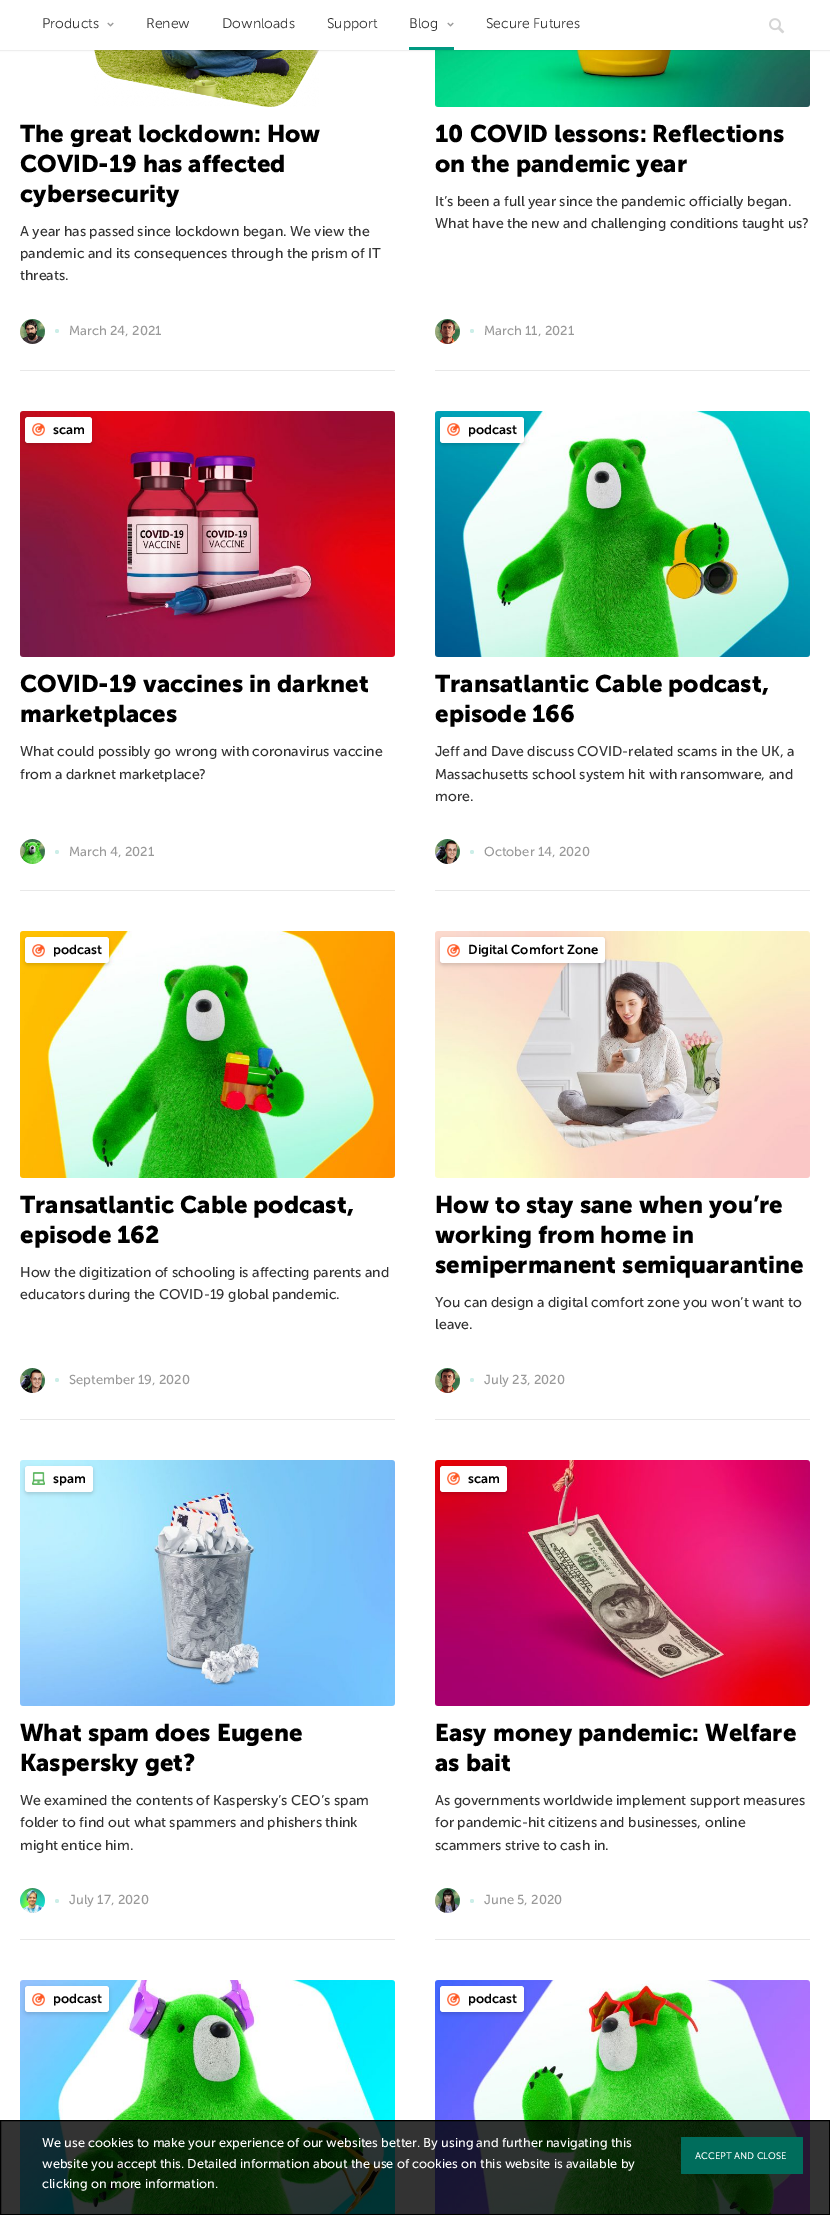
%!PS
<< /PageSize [830 2215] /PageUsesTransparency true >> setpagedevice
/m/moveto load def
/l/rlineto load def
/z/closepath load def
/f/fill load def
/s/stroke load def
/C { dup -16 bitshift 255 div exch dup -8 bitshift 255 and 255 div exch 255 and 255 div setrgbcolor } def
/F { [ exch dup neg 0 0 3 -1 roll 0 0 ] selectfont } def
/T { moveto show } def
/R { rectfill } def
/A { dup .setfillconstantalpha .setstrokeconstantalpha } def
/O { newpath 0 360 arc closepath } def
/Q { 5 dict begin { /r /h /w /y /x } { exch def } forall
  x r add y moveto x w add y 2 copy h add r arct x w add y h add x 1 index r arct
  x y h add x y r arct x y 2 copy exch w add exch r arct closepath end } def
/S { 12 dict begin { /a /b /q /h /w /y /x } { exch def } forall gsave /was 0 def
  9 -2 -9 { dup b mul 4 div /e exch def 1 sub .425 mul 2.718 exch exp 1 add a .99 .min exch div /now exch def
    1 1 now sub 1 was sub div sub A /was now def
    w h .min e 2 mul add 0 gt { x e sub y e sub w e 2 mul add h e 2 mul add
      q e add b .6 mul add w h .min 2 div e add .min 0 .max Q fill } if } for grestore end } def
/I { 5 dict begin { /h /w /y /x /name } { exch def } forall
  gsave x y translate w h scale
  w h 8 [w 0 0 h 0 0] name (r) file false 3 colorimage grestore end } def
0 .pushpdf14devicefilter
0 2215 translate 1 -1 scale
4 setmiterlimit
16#FFFFFF C
0 0 830 2215 R
(3.rgb) 94 50 226 57 I
(5.rgb) 435 50 375 57 I
16#000000 C
0 -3 830 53 0 1 .2 S
16#FFFFFF C
0 0 830 50 R
/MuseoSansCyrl-Light 14 F
16#333333 C
(Products) 42 28 T
(1.rgb) 107 22 7 5 I
(Renew) 146 28 T
(Downloads) 222 28 T
(Support) 327 28 T
16#009981 C
409 47 45 3 R
16#333333 C
(Blog) 409 28 T
(1.rgb) 447 22 7 5 I
(Secure Futures) 486 28 T
(2.rgb) 769 18 16 16 I
16#E8E8E8 C
20 370 375 1 R
/MuseoSansCyrl-Bold 24 F
16#000000 C
(The great lockdown: How) 20 142 T
(COVID-19 has affected) 20 172 T
(cybersecurity) 20 202 T
/MuseoSansCyrl-Regular 14 F
16#333333 C
(A year has passed since lockdown began. We view the) 20 236 T
(pandemic and its consequences through the prism of IT) 20 258 T
(threats.) 20 280 T
(4.rgb) 20 319 25 25 I
16#CCEEE8 C
57 331 2 O f
/MuseoSansCyrl-Regular 13 F
16#999999 C
(March 24, 2021) 69 335 T
16#E8E8E8 C
435 370 375 1 R
/MuseoSansCyrl-Bold 24 F
16#000000 C
(10 COVID lessons: Reflections) 435 142 T
(on the pandemic year) 435 172 T
/MuseoSansCyrl-Regular 14 F
16#333333 C
(It’s been a full year since the pandemic officially began.) 435 206 T
(What have the new and challenging conditions taught us?) 435 228 T
(6.rgb) 435 319 25 25 I
16#CCEEE8 C
472 331 2 O f
/MuseoSansCyrl-Regular 13 F
16#999999 C
(March 11, 2021) 484 335 T
16#E8E8E8 C
20 890 375 1 R
(7.rgb) 20 411 375 246 I
16#000000 C
25 419 67 26 3 2 .15 S
16#FFFFFF C
25 417 67 26 3 Q f
(8.rgb) 32 423 13 13 I
/MuseoSansCyrl-SemiBold 13 F
16#000000 C
(scam) 53 434 T
/MuseoSansCyrl-Bold 24 F
(COVID-19 vaccines in darknet) 20 692 T
(marketplaces) 20 722 T
/MuseoSansCyrl-Regular 14 F
16#333333 C
(What could possibly go wrong with coronavirus vaccine) 20 756 T
(from a darknet marketplace?) 20 779 T
(9.rgb) 20 839 25 25 I
16#CCEEE8 C
57 852 2 O f
/MuseoSansCyrl-Regular 13 F
16#999999 C
(March 4, 2021) 69 856 T
16#E8E8E8 C
435 890 375 1 R
(10.rgb) 435 411 375 246 I
16#000000 C
440 419 84 26 3 2 .15 S
16#FFFFFF C
440 417 84 26 3 Q f
(11.rgb) 447 423 13 13 I
/MuseoSansCyrl-SemiBold 13 F
16#000000 C
(podcast) 468 434 T
/MuseoSansCyrl-Bold 24 F
(Transatlantic Cable podcast,) 435 692 T
(episode 166) 435 722 T
/MuseoSansCyrl-Regular 14 F
16#333333 C
(Jeff and Dave discuss COVID-related scams in the UK, a) 435 756 T
(Massachusetts school system hit with ransomware, and) 435 779 T
(more.) 435 801 T
(12.rgb) 435 839 25 25 I
16#CCEEE8 C
472 852 2 O f
/MuseoSansCyrl-Regular 13 F
16#999999 C
(October 14, 2020) 484 856 T
16#E8E8E8 C
20 1419 375 1 R
(13.rgb) 20 931 375 247 I
16#000000 C
25 939 84 26 3 2 .15 S
16#FFFFFF C
25 937 84 26 3 Q f
(8.rgb) 32 944 13 13 I
/MuseoSansCyrl-SemiBold 13 F
16#000000 C
(podcast) 53 954 T
/MuseoSansCyrl-Bold 24 F
(Transatlantic Cable podcast,) 20 1213 T
(episode 162) 20 1243 T
/MuseoSansCyrl-Regular 14 F
16#333333 C
(How the digitization of schooling is affecting parents and) 20 1277 T
(educators during the COVID-19 global pandemic.) 20 1299 T
(14.rgb) 20 1368 25 25 I
16#CCEEE8 C
57 1380 2 O f
/MuseoSansCyrl-Regular 13 F
16#999999 C
(September 19, 2020) 69 1384 T
16#E8E8E8 C
435 1419 375 1 R
(15.rgb) 435 931 375 247 I
16#000000 C
440 939 165 26 3 2 .15 S
16#FFFFFF C
440 937 165 26 3 Q f
(11.rgb) 447 944 13 13 I
/MuseoSansCyrl-SemiBold 13 F
16#000000 C
(Digital Comfort Zone) 468 954 T
/MuseoSansCyrl-Bold 24 F
(How to stay sane when you’re) 435 1213 T
(working from home in) 435 1243 T
(semipermanent semiquarantine) 435 1273 T
/MuseoSansCyrl-Regular 14 F
16#333333 C
(You can design a digital comfort zone you won’t want to) 435 1307 T
(leave.) 435 1329 T
(16.rgb) 435 1368 25 25 I
16#CCEEE8 C
472 1380 2 O f
/MuseoSansCyrl-Regular 13 F
16#999999 C
(July 23, 2020) 484 1384 T
16#E8E8E8 C
20 1939 375 1 R
(17.rgb) 20 1460 375 246 I
16#000000 C
25 1468 68 26 3 2 .15 S
16#FFFFFF C
25 1466 68 26 3 Q f
(18.rgb) 32 1472 13 13 I
/MuseoSansCyrl-SemiBold 13 F
16#000000 C
(spam) 53 1483 T
/MuseoSansCyrl-Bold 24 F
(What spam does Eugene) 20 1741 T
(Kaspersky get?) 20 1771 T
/MuseoSansCyrl-Regular 14 F
16#333333 C
(We examined the contents of Kaspersky’s CEO’s spam) 20 1805 T
(folder to find out what spammers and phishers think) 20 1827 T
(might entice him.) 20 1850 T
(19.rgb) 20 1888 25 25 I
16#CCEEE8 C
57 1901 2 O f
/MuseoSansCyrl-Regular 13 F
16#999999 C
(July 17, 2020) 69 1904 T
16#E8E8E8 C
435 1939 375 1 R
(20.rgb) 435 1460 375 246 I
16#000000 C
440 1468 67 26 3 2 .15 S
16#FFFFFF C
440 1466 67 26 3 Q f
(11.rgb) 447 1472 13 13 I
/MuseoSansCyrl-SemiBold 13 F
16#000000 C
(scam) 468 1483 T
/MuseoSansCyrl-Bold 24 F
(Easy money pandemic: Welfare) 435 1741 T
(as bait) 435 1771 T
/MuseoSansCyrl-Regular 14 F
16#333333 C
(As governments worldwide implement support measures) 435 1805 T
(for pandemic-hit citizens and businesses, online) 435 1827 T
(scammers strive to cash in.) 435 1850 T
(21.rgb) 435 1888 25 25 I
16#CCEEE8 C
472 1901 2 O f
/MuseoSansCyrl-Regular 13 F
16#999999 C
(June 5, 2020) 484 1904 T
(22.rgb) 20 1980 375 234 I
16#000000 C
25 1988 84 26 3 2 .15 S
16#FFFFFF C
25 1986 84 26 3 Q f
(8.rgb) 32 1993 13 13 I
/MuseoSansCyrl-SemiBold 13 F
16#000000 C
(podcast) 53 2003 T
(23.rgb) 435 1980 375 234 I
440 1988 84 26 3 2 .15 S
16#FFFFFF C
440 1986 84 26 3 Q f
(11.rgb) 447 1993 13 13 I
16#000000 C
(podcast) 468 2003 T
0.8 A
.5 2120.5 m 829 0 l 0 94 l -829 0 l z f
1 A
.5 2120.5 m 829 0 l 0 94 l -829 0 l z s
/MuseoSansCyrl-Regular 12.8 F
16#FFFFFF C
(We use cookies to make your experience of our websites better. By using and further navigating this) 42 2147 T
(website you accept this. Detailed information about the use of cookies on this website is available by) 42 2168 T
(clicking on more information.) 42 2188 T
16#006D5C C
681 2137 122 37 1 Q f
/MuseoSansCyrl-Regular 9.5 F
16#FFFFFF C
(ACCEPT AND CLOSE) 695 2159 T
.poppdf14devicefilter showpage
